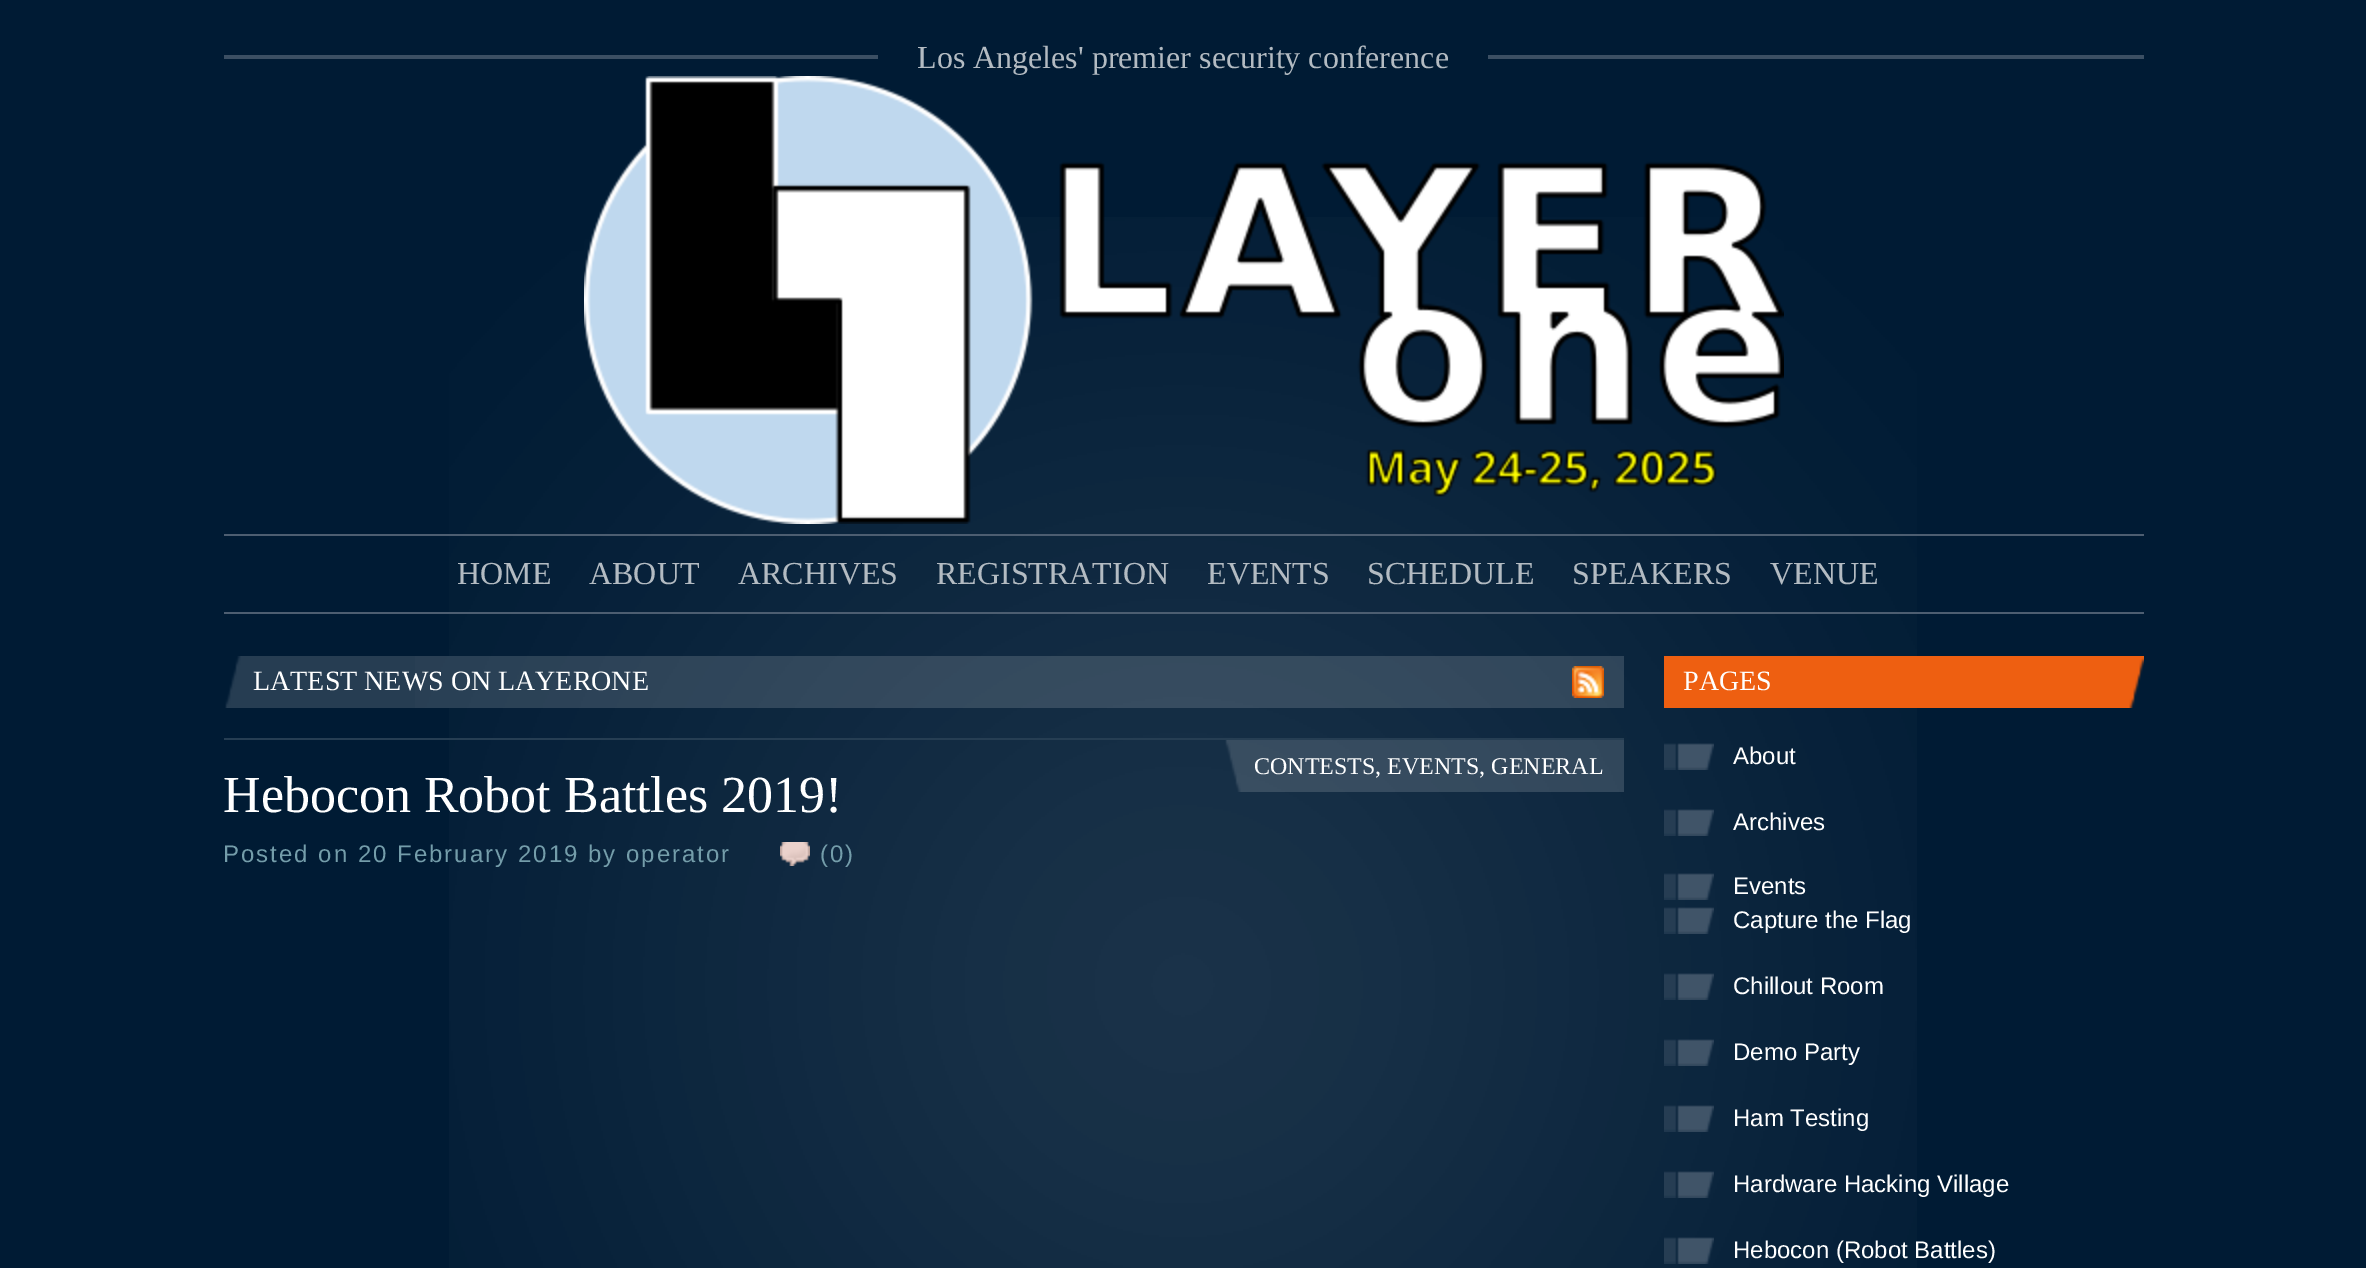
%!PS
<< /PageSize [2366 1268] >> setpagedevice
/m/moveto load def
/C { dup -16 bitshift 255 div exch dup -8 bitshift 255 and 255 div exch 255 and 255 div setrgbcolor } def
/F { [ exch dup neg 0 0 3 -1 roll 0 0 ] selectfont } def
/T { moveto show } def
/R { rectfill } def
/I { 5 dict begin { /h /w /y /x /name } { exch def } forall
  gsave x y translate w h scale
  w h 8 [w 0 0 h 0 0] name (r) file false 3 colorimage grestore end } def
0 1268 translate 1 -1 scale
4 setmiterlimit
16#001B34 C
0 0 2366 1268 R
(1.rgb) 449 251 1468 1017 I
16#3B4F63 C
224 55 1920 4 R
16#001B34 C
878 55 610 4 R
/LiberationSerif-Regular 32 F
16#B3BBC2 C
(Los Angeles' premier security conference) 917 68 T
16#4D5E71 C
224 534 1920 2 R
(2.rgb) 584 76 1200 448 I
224 612 1920 2 R
16#B3BBC2 C
(HOME) 457 584 T
(ABOUT) 589 584 T
(ARCHIVES) 738 584 T
(REGISTRATION) 936 584 T
(EVENTS) 1207 584 T
(SCHEDULE) 1367 584 T
(SPEAKERS) 1572 584 T
(VENUE) 1770 584 T
(3.rgb) 225 656 1399 52 I
/LiberationSerif-Regular 28 F
16#FFFFFF C
(LATEST NEWS ON LAYERONE) 253 690 T
(4.rgb) 1572 666 32 32 I
16#263E53 C
224 738 1400 2 R
(5.rgb) 1225 740 399 52 I
/LiberationSerif-Regular 24 F
16#FFFFFF C
(CONTESTS, EVENTS, GENERAL) 1254 774 T
/LiberationSerif-Regular 52 F
(Hebocon Robot Battles 2019!) 223 812 T
/LiberationSans-Regular 24 F
16#749DAA C
223 862 m 2 0 (Posted on 20 February 2019 by operator) ashow
(6.rgb) 780 842 30 24 I
820 862 m 2 0 (\(0\)) ashow
(7.rgb) 1664 656 480 52 I
/LiberationSerif-Regular 28 F
16#FFFFFF C
(PAGES) 1683 690 T
(8.rgb) 1664 743 50 27 I
/LiberationSans-Regular 24 F
(About) 1733 764 T
(9.rgb) 1664 809 50 27 I
(Archives) 1733 830 T
(10.rgb) 1664 873 50 27 I
(Events) 1733 894 T
(11.rgb) 1664 907 50 27 I
(Capture the Flag) 1733 928 T
(12.rgb) 1664 973 50 27 I
(Chillout Room) 1733 994 T
(13.rgb) 1664 1039 50 27 I
(Demo Party) 1733 1060 T
(14.rgb) 1664 1105 50 27 I
(Ham Testing) 1733 1126 T
(15.rgb) 1664 1171 50 27 I
(Hardware Hacking Village) 1733 1192 T
(16.rgb) 1664 1237 50 27 I
(Hebocon \(Robot Battles\)) 1733 1258 T
showpage
